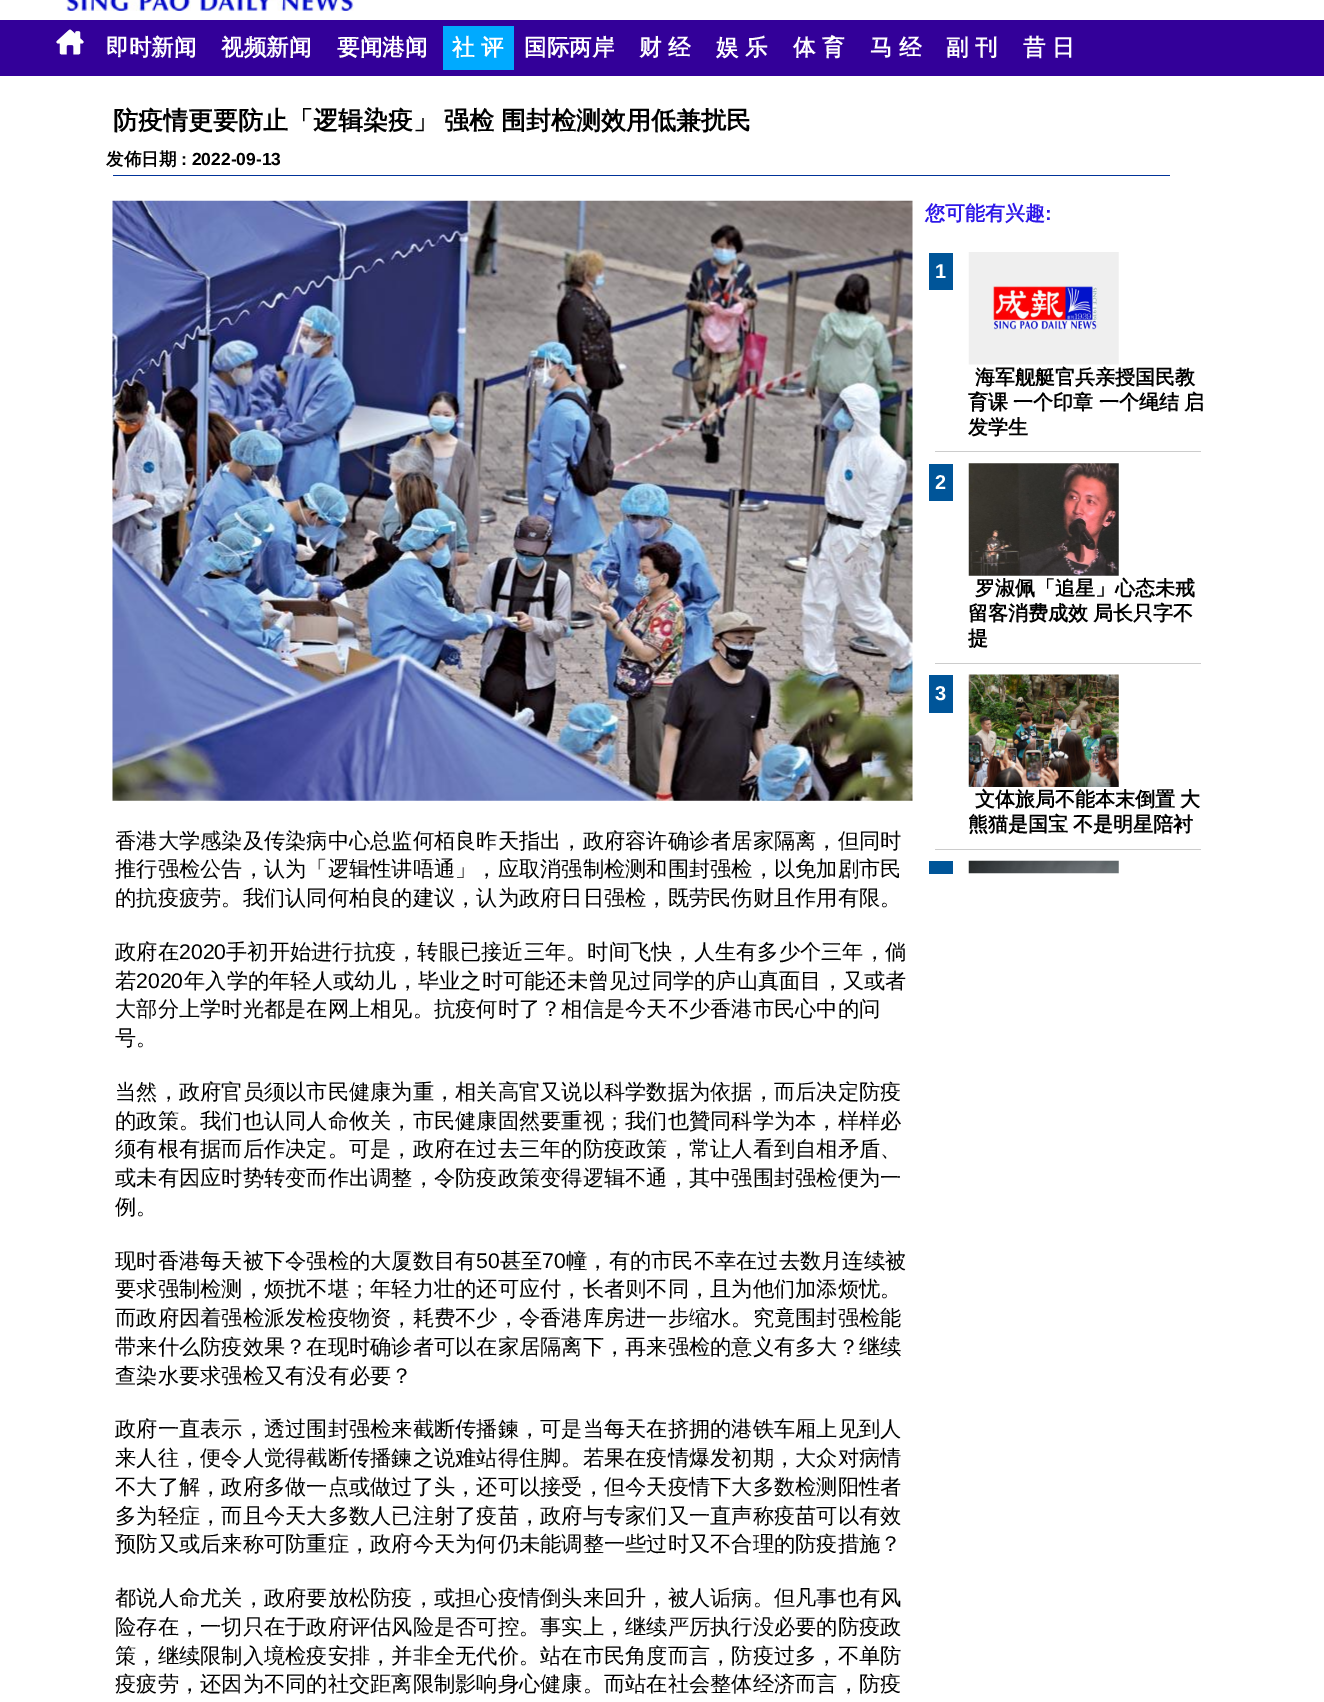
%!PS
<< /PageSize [1324 1702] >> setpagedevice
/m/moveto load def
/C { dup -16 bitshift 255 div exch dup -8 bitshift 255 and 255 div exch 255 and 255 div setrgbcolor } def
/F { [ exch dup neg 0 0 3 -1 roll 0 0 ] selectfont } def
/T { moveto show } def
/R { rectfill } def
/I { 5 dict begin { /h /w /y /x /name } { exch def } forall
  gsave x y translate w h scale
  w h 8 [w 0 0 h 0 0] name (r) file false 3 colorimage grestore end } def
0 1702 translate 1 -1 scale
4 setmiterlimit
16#FFFFFF C
0 0 1324 1702 R
(1.rgb) 66 0 288 11 I
16#330099 C
0 20 1324 56 R
(2.rgb) 56 29 28 26 I
/WenQuanYiZenHei-Bold 22.5 F
16#FFFFFF C
(即时新闻) 106 55 T
(视频新闻) 221 55 T
(要闻港闻) 337 55 T
16#00AAFF C
443 26 71 44 R
16#FFFFFF C
(社 评) 452 55 T
(国际两岸) 524 55 T
(财 经) 639 55 T
(娱 乐) 716 55 T
(体 育) 793 55 T
(马 经) 870 55 T
(副 刊) 946 55 T
(昔 日) 1023 55 T
/WenQuanYiZenHei-Bold 25 F
16#000000 C
113 129 m -1 0 32 (防疫情更要防止「逻辑染疫」 强检 围封检测效用低兼扰民) widthshow
/WenQuanYiZenHei-Bold 17.5 F
(发佈日期) 106 165 T
/LiberationSans-Bold 17.5 F
(: 2022-09-13) 181 165 T
16#003399 C
113 175 1057 1 R
/WenQuanYiZenHei-Bold 20 F
16#2D17E8 C
(您可能有兴趣) 925 220 T
/LiberationSans-Bold 20 F
(:) 1045 220 T
16#005599 C
929 253 24 37 R
16#FFFFFF C
(1) 935 278 T
(3.rgb) 968 252 151 113 I
/WenQuanYiZenHei-Bold 20 F
16#000000 C
(海军舰艇官兵亲授国民教) 975 384 T
968 409 m -.5 0 32 (育课 一个印章 一个绳结 启) widthshow
(发学生) 968 434 T
16#CCCCCC C
935 451 266 1 R
16#005599 C
929 464 24 37 R
/LiberationSans-Bold 20 F
16#FFFFFF C
(2) 935 489 T
(4.rgb) 968 463 151 113 I
/WenQuanYiZenHei-Bold 20 F
16#000000 C
(罗淑佩「追星」心态未戒) 975 595 T
968 620 m -.5 0 32 (留客消费成效 局长只字不) widthshow
(提) 968 645 T
16#CCCCCC C
935 663 266 1 R
16#005599 C
929 675 24 38 R
/LiberationSans-Bold 20 F
16#FFFFFF C
(3) 935 700 T
(5.rgb) 968 674 151 113 I
/WenQuanYiZenHei-Bold 20 F
16#000000 C
975 806 m -.5 0 32 (文体旅局不能本末倒置 大) widthshow
968 831 m -.5 0 32 (熊猫是国宝 不是明星陪衬) widthshow
16#CCCCCC C
935 849 266 1 R
16#005599 C
929 861 24 13 R
(6.rgb) 968 860 151 14 I
(7.rgb) 112 200 801 601 I
/WenQuanYiZenHei-Medium 21.25 F
16#000000 C
(香港大学感染及传染病中心总监何栢良昨天指出，政府容许确诊者居家隔离，但同时) 115 848 T
(推行强检公告，认为「逻辑性讲唔通」，应取消强制检测和围封强检，以免加剧市民) 115 876 T
(的抗疫疲劳。我们认同何柏良的建议，认为政府日日强检，既劳民伤财且作用有限。) 115 905 T
(政府在) 115 959 T
/LiberationSans-Regular 21.25 F
(2020) 179 959 T
/WenQuanYiZenHei-Medium 21.25 F
(手初开始进行抗疫，转眼已接近三年。时间飞快，人生有多少个三年，倘) 226 959 T
(若) 115 988 T
/LiberationSans-Regular 21.25 F
(2020) 136 988 T
/WenQuanYiZenHei-Medium 21.25 F
(年入学的年轻人或幼儿，毕业之时可能还未曾见过同学的庐山真面目，又或者) 184 988 T
(大部分上学时光都是在网上相见。抗疫何时了？相信是今天不少香港市民心中的问) 115 1016 T
(号。) 115 1045 T
(当然，政府官员须以市民健康为重，相关高官又说以科学数据为依据，而后决定防疫) 115 1099 T
(的政策。我们也认同人命攸关，市民健康固然要重视；我们也贊同科学为本，样样必) 115 1128 T
(须有根有据而后作决定。可是，政府在过去三年的防疫政策，常让人看到自相矛盾、) 115 1156 T
(或未有因应时势转变而作出调整，令防疫政策变得逻辑不通，其中强围封强检便为一) 115 1185 T
(例。) 115 1214 T
(现时香港每天被下令强检的大厦数目有) 115 1268 T
/LiberationSans-Regular 21.25 F
(50) 476 1268 T
/WenQuanYiZenHei-Medium 21.25 F
(甚至) 500 1268 T
/LiberationSans-Regular 21.25 F
(70) 542 1268 T
/WenQuanYiZenHei-Medium 21.25 F
(幢，有的市民不幸在过去数月连续被) 566 1268 T
(要求强制检测，烦扰不堪；年轻力壮的还可应付，长者则不同，且为他们加添烦忧。) 115 1296 T
(而政府因着强检派发检疫物资，耗费不少，令香港库房进一步缩水。究竟围封强检能) 115 1325 T
(带来什么防疫效果？在现时确诊者可以在家居隔离下，再来强检的意义有多大？继续) 115 1354 T
(查染水要求强检又有没有必要？) 115 1383 T
(政府一直表示，透过围封强检来截断传播鍊，可是当每天在挤拥的港铁车厢上见到人) 115 1436 T
(来人往，便令人觉得截断传播鍊之说难站得住脚。若果在疫情爆发初期，大众对病情) 115 1465 T
(不大了解，政府多做一点或做过了头，还可以接受，但今天疫情下大多数检测阳性者) 115 1494 T
(多为轻症，而且今天大多数人已注射了疫苗，政府与专家们又一直声称疫苗可以有效) 115 1523 T
(预防又或后来称可防重症，政府今天为何仍未能调整一些过时又不合理的防疫措施？) 115 1551 T
(都说人命尤关，政府要放松防疫，或担心疫情倒头来回升，被人诟病。但凡事也有风) 115 1605 T
(险存在，一切只在于政府评估风险是否可控。事实上，继续严厉执行没必要的防疫政) 115 1634 T
(策，继续限制入境检疫安排，并非全无代价。站在市民角度而言，防疫过多，不单防) 115 1663 T
(疫疲劳，还因为不同的社交距离限制影响身心健康。而站在社会整体经济而言，防疫) 115 1691 T
showpage
